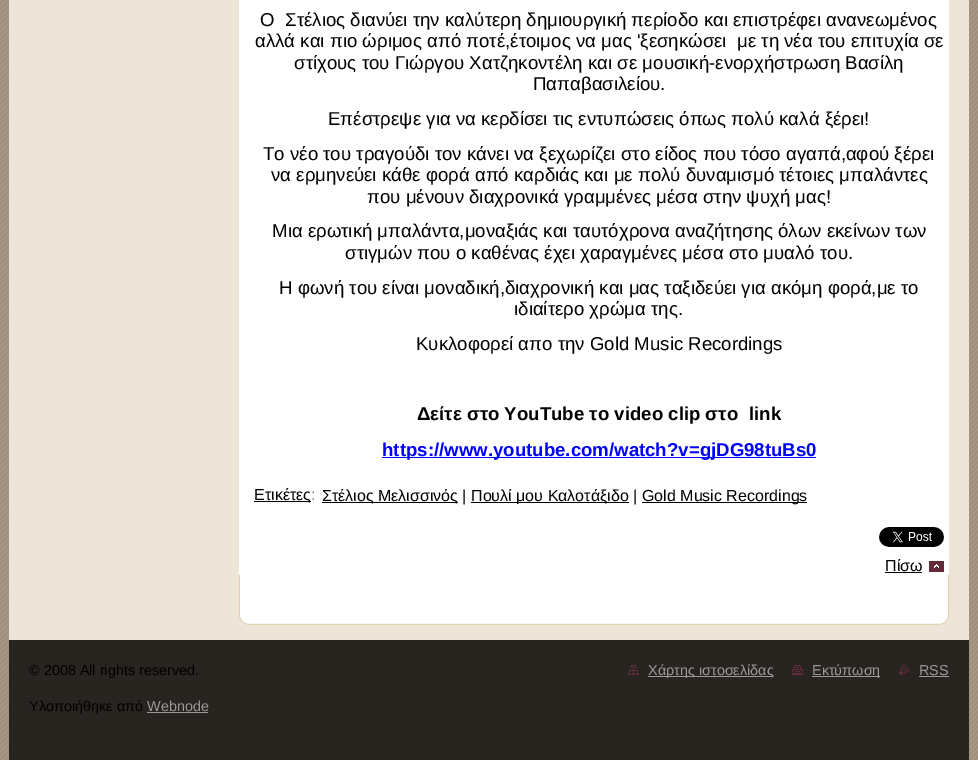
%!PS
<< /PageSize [978 760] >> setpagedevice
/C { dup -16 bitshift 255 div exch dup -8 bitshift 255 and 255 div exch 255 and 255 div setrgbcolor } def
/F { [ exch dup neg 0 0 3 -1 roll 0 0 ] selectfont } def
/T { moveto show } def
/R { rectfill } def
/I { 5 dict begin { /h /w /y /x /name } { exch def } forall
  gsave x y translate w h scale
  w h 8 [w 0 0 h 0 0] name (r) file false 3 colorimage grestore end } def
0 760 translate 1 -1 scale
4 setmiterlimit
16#FFFFFF C
0 0 978 760 R
(1.rgb) 0 0 978 760 I
16#EDE5D8 C
9 0 960 640 R
(2.rgb) 239 575 710 50 I
16#FFFFFF C
239 0 710 575 R
/LiberationSans-Regular 18.65 F
16#000000 C
(Ο) 260 26 T
(Στέλιος διανύει την καλύτερη δημιουργική περίοδο και επιστρέφει ανανεωμένος) 285 26 T
(αλλά και πιο ώριμος από ποτέ,έτοιμος να μας 'ξεσηκώσει) 255 47 T
(με τη νέα του επιτυχία σε) 737 47 T
(στίχους του Γιώργου Χατζηκοντέλη και σε μουσική-ενορχήστρωση Βασίλη) 294 69 T
(Παπαβασιλείου.) 533 90 T
(Επέστρεψε για να κερδίσει τις εντυπώσεις όπως πολύ καλά ξέρει!) 328 125 T
(Το νέο του τραγούδι τον κάνει να ξεχωρίζει στο είδος που τόσο αγαπά,αφού ξέρει) 263 160 T
(να ερμηνεύει κάθε φορά από καρδιάς και με πολύ δυναμισμό τέτοιες μπαλάντες) 271 181 T
(που μένουν διαχρονικά γραμμένες μέσα στην ψυχή μας!) 367 203 T
(Μια ερωτική μπαλάντα,μοναξιάς και ταυτόχρονα αναζήτησης όλων εκείνων των) 272 237 T
(στιγμών που ο καθένας έχει χαραγμένες μέσα στο μυαλό του.) 345 259 T
(Η φωνή του είναι μοναδική,διαχρονική και μας ταξιδεύει για ακόμη φορά,με το) 279 294 T
(ιδιαίτερο χρώμα της.) 514 315 T
(Κυκλοφορεί απο την Gold Music Recordings) 416 350 T
/LiberationSans-Bold 18.65 F
(Δείτε στο ΥouΤube το video clip στο) 417 420 T
(link) 749 420 T
16#0000FF C
382 457 434 1 R
(https://www.youtube.com/watch?v=gjDG98tuBs0) 382 456 T
16#000000 C
254 501 57 1 R
/LiberationSans-Regular 16 F
(Ετικέτες) 254 500 T
16#958674 C
(:) 311 500 T
16#000000 C
322 502 136 1 R
(Στέλιος Μελισσινός |) 322 501 T
471 502 158 1 R
(Πουλί μου Καλοτάξιδο |) 471 501 T
642 502 165 1 R
(Gold Music Recordings) 642 501 T
(3.rgb) 879 527 65 20 I
(4.rgb) 929 561 15 11 I
(Πίσω) 885 571 T
885 572 37 1 R
16#28241F C
9 640 960 120 R
/LiberationSans-Regular 14.4 F
16#000000 C
(© 2008 All rights reserved.) 29 675 T
(Υλοποιήθηκε από) 29 711 T
16#999999 C
(Webnode) 147 711 T
147 712 61 1 R
(5.rgb) 628 665 11 10 I
648 676 125 1 R
(Χάρτης ιστοσελίδας) 648 675 T
(6.rgb) 792 665 11 10 I
812 676 68 1 R
(Εκτύπωση) 812 675 T
(7.rgb) 899 665 10 10 I
(RSS) 919 675 T
919 676 30 1 R
showpage
